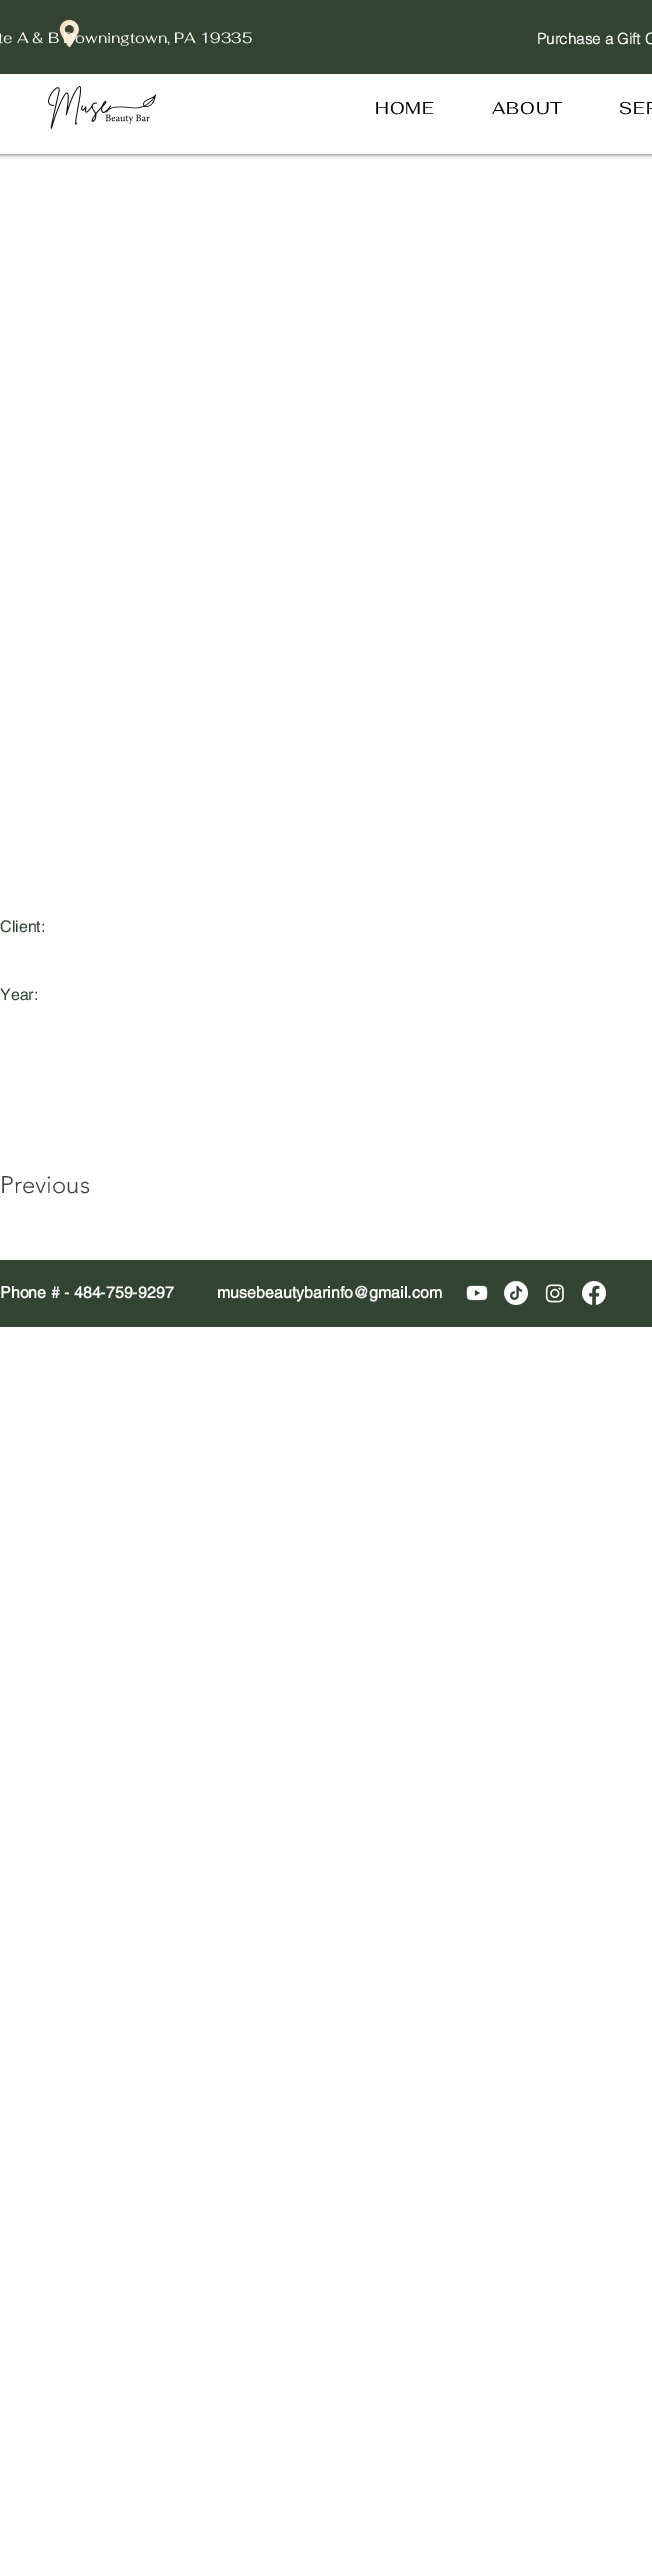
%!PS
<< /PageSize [652 2559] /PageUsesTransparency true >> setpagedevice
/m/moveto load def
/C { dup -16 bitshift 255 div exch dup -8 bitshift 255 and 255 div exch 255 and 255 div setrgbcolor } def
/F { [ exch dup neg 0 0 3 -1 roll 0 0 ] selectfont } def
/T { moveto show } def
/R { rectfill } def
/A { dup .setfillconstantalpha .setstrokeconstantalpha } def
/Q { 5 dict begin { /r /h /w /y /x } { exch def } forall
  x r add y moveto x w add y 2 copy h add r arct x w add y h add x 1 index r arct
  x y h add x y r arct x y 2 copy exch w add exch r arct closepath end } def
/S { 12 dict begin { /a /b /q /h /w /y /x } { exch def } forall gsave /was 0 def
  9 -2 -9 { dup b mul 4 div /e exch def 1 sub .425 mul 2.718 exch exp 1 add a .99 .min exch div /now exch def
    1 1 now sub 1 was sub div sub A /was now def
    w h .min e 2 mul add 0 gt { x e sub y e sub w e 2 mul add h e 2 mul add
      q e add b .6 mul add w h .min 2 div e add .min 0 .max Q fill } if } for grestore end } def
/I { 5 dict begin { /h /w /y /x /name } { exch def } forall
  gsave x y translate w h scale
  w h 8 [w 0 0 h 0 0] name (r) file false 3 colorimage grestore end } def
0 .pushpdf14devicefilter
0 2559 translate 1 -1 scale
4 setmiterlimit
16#FFFFFF C
0 0 652 2559 R
16#000000 C
0 0 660 154 0 2.5 .7 S
16#324532 C
0 0 652 74 R
(1.rgb) 59 19 20 29 I
/Fahkwang-Regular 15 F
16#FFFFFF C
(te A & B Downingtown, PA 19335) -2 43 T
/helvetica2-Bold 15 F
(Purchase a Gift C) 537 44 T
0 74 652 80 R
(2.rgb) 48 86 108 43 I
/Fahkwang-Regular 17 F
16#000000 C
375 114 m 1 0 (HOME) ashow
492 114 m 1 0 (ABOUT) ashow
619 114 m 1 0 (SER) ashow
/helvetica-Regular 16 F
16#324532 C
(Client:) 0 932 T
(Year:) 0 1000 T
/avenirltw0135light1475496-Light 24 F
16#414141 C
(Previous) 0 1193 T
16#324532 C
0 1260 652 67 R
/helvetica-Bold 16 F
16#FFFFFF C
(Phone # - 484-759-9297) 0 1298 T
(musebeautybarinfo@gmail.com) 217 1298 T
(3.rgb) 466 1285 22 16 I
(4.rgb) 504 1281 24 24 I
(5.rgb) 545 1284 19 19 I
(6.rgb) 582 1281 24 24 I
.poppdf14devicefilter showpage
